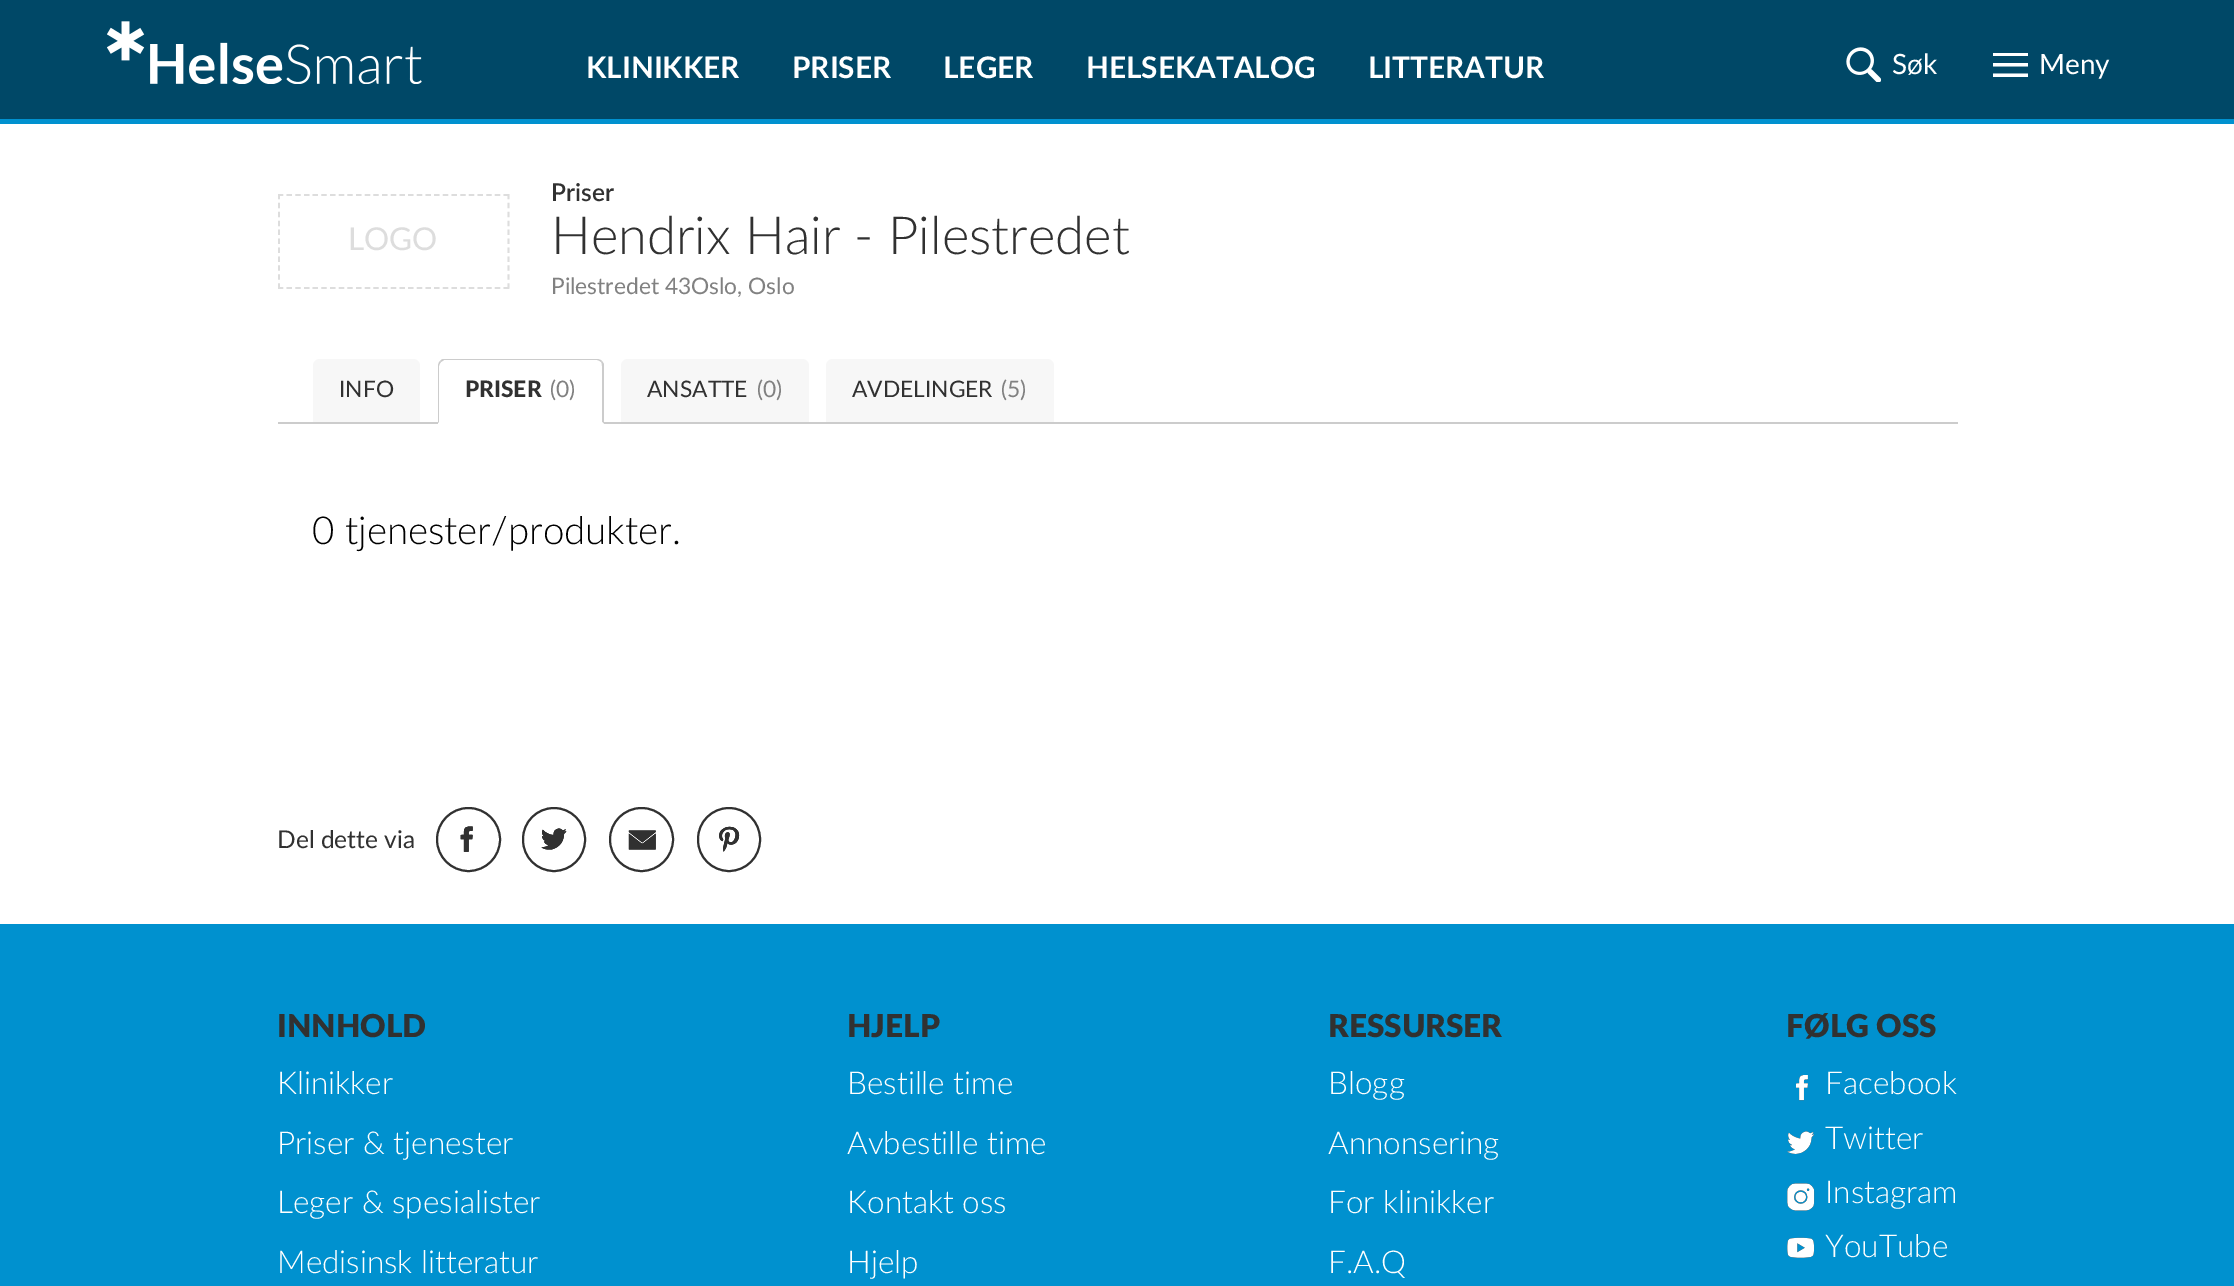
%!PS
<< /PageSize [2234 1286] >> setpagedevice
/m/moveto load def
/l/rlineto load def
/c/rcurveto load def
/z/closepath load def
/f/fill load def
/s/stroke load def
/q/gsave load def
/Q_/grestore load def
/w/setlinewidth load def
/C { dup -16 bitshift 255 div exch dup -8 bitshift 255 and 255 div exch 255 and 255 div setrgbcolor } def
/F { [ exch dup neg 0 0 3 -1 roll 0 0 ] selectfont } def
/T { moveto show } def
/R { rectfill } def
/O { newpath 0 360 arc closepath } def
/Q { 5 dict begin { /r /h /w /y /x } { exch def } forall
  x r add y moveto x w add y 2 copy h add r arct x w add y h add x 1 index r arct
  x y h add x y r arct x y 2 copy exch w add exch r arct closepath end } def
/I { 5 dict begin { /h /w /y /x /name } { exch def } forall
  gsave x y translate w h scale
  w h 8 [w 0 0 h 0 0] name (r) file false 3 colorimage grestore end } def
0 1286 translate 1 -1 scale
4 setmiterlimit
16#FFFFFF C
0 0 2234 1286 R
16#004867 C
0 0 2234 119 R
16#0091CF C
0 119 2234 5 R
(1.rgb) 107 21 315 63 I
/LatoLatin-Bold 29.75 F
16#FFFFFF C
(KLINIKKER) 586 78 T
(PRISER) 792 78 T
(LEGER) 943 78 T
(HELSEKATALOG) 1086 78 T
(LITTERATUR) 1368 78 T
(2.rgb) 1846 47 35 35 I
/LatoLatin-Regular 28 F
(Søk) 1892 74 T
q
1993 53 35 24 rectclip
1993 52.5 m 35 0 l 0 3.5 l -35 0 l z 1993 63 m 35 0 l 0 3.5 l -35 0 l z 1993 73.5 m 35 0 l 0 3.5 l -35 0 l z eofill
Q_
(Meny) 2039 74 T
16#DDDDDD C
1.8 w
[5.25 3.43] 0 setdash
278 195 m 231 0 l s
[5.25 3.68] 0 setdash
508.5 194 m 0 95 l s
[5.25 3.43] 0 setdash
278 288 m 231 0 l s
[5.25 3.68] 0 setdash
279 194 m 0 95 l s
/LatoLatin-Regular 31.5 F
(LOGO) 348 250 T
/LatoLatin-SemiBold 24.5 F
16#313131 C
(Priser) 551 201 T
/LatoLatin-Light 52.5 F
(Hendrix Hair - Pilestredet) 551 254 T
/LatoLatin-Regular 22.75 F
16#818181 C
(Pilestredet 43Oslo, Oslo) 551 294 T
16#F7F7F7 C
320 359 m 93 0 l 4 0 7 3 7 7 c 0 58 l -107 0 l 0 -58 l 0 -4 3 -7 7 -7 c z f
16#CCCCCC C
313 422 125 2 R
16#313131 C
(INFO) 339 397 T
16#CCCCCC C
444 359 m -2 0 -3 1 -4 2 c 1 1 l 3 -2 l 153 0 l 1 0 3 1 4 2 c 1 -1 l -1 -1 -3 -2 -5 -2 c z f
602 361 m 2 3 l 0 60 l -2 -2 l 0 -56 l 0 -2 0 -3 -1 -4 c z f
16#FFFFFF C
604 424 m -166 0 l 1 -2 l 163 0 l z f
16#CCCCCC C
440 361 m -1 1 -2 3 -2 5 c 0 57 l 1 -1 l 0 -56 l 0 -1 1 -3 2 -4 c z f
/LatoLatin-Black 22.75 F
16#313131 C
(PRISER) 465 397 T
/LatoLatin-Regular 22.75 F
16#818181 C
(\(0\)) 550 397 T
16#F7F7F7 C
628 359 m 174 0 l 4 0 7 3 7 7 c 0 58 l -188 0 l 0 -58 l 0 -4 3 -7 7 -7 c z f
16#CCCCCC C
621 422 205 2 R
16#313131 C
(ANSATTE) 647 397 T
16#818181 C
(\(0\)) 757 397 T
16#F7F7F7 C
833 359 m 214 0 l 4 0 7 3 7 7 c 0 58 l -228 0 l 0 -58 l 0 -4 3 -7 7 -7 c z f
16#CCCCCC C
826 422 1132 2 R
16#313131 C
(AVDELINGER) 852 397 T
16#818181 C
(\(5\)) 1001 397 T
16#CCCCCC C
278 422 35 2 R
604 422 17 2 R
/LatoLatin-Light 38.5 F
16#000000 C
(0 tjenester/produkter.) 312 544 T
/LatoLatin-Regular 24.5 F
16#313131 C
(Del dette via) 277 848 T
2 w
[] 0 setdash
468.5 839.5 31.5 O s
(3.rgb) 460 826 13 26 I
523 808 62 63 31 Q s
(4.rgb) 541 828 26 22 I
641.5 839.5 31.5 O s
(5.rgb) 628 830 28 20 I
698 808 62 63 31 Q s
(6.rgb) 719 826 21 26 I
16#0091CF C
0 924 2234 362 R
/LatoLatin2-Black 31.5 F
16#313131 C
(INNHOLD) 277 1037 T
/LatoLatin-Light 31.5 F
16#FFFFFF C
(Klinikker) 277 1094 T
(Priser & tjenester) 277 1154 T
(Leger & spesialister) 277 1213 T
(Medisinsk litteratur) 277 1273 T
/LatoLatin2-Black 31.5 F
16#313131 C
(HJELP) 847 1037 T
/LatoLatin-Light 31.5 F
16#FFFFFF C
(Bestille time) 847 1094 T
(Avbestille time) 847 1154 T
(Kontakt oss) 847 1213 T
(Hjelp) 847 1273 T
/LatoLatin2-Black 31.5 F
16#313131 C
(RESSURSER) 1328 1037 T
/LatoLatin-Light 31.5 F
16#FFFFFF C
(Blogg) 1328 1094 T
(Annonsering) 1328 1154 T
(For klinikker) 1328 1213 T
(F.A.Q) 1328 1273 T
/LatoLatin2-Black 31.5 F
16#313131 C
(FØLG OSS) 1786 1037 T
(7.rgb) 1796 1075 12 26 I
/LatoLatin-Light 31.5 F
16#FFFFFF C
(Facebook) 1825 1094 T
(8.rgb) 1787 1131 27 23 I
(Twitter) 1825 1149 T
(9.rgb) 1787 1183 28 28 I
(Instagram) 1825 1203 T
(10.rgb) 1787 1237 28 21 I
(YouTube) 1825 1257 T
showpage
